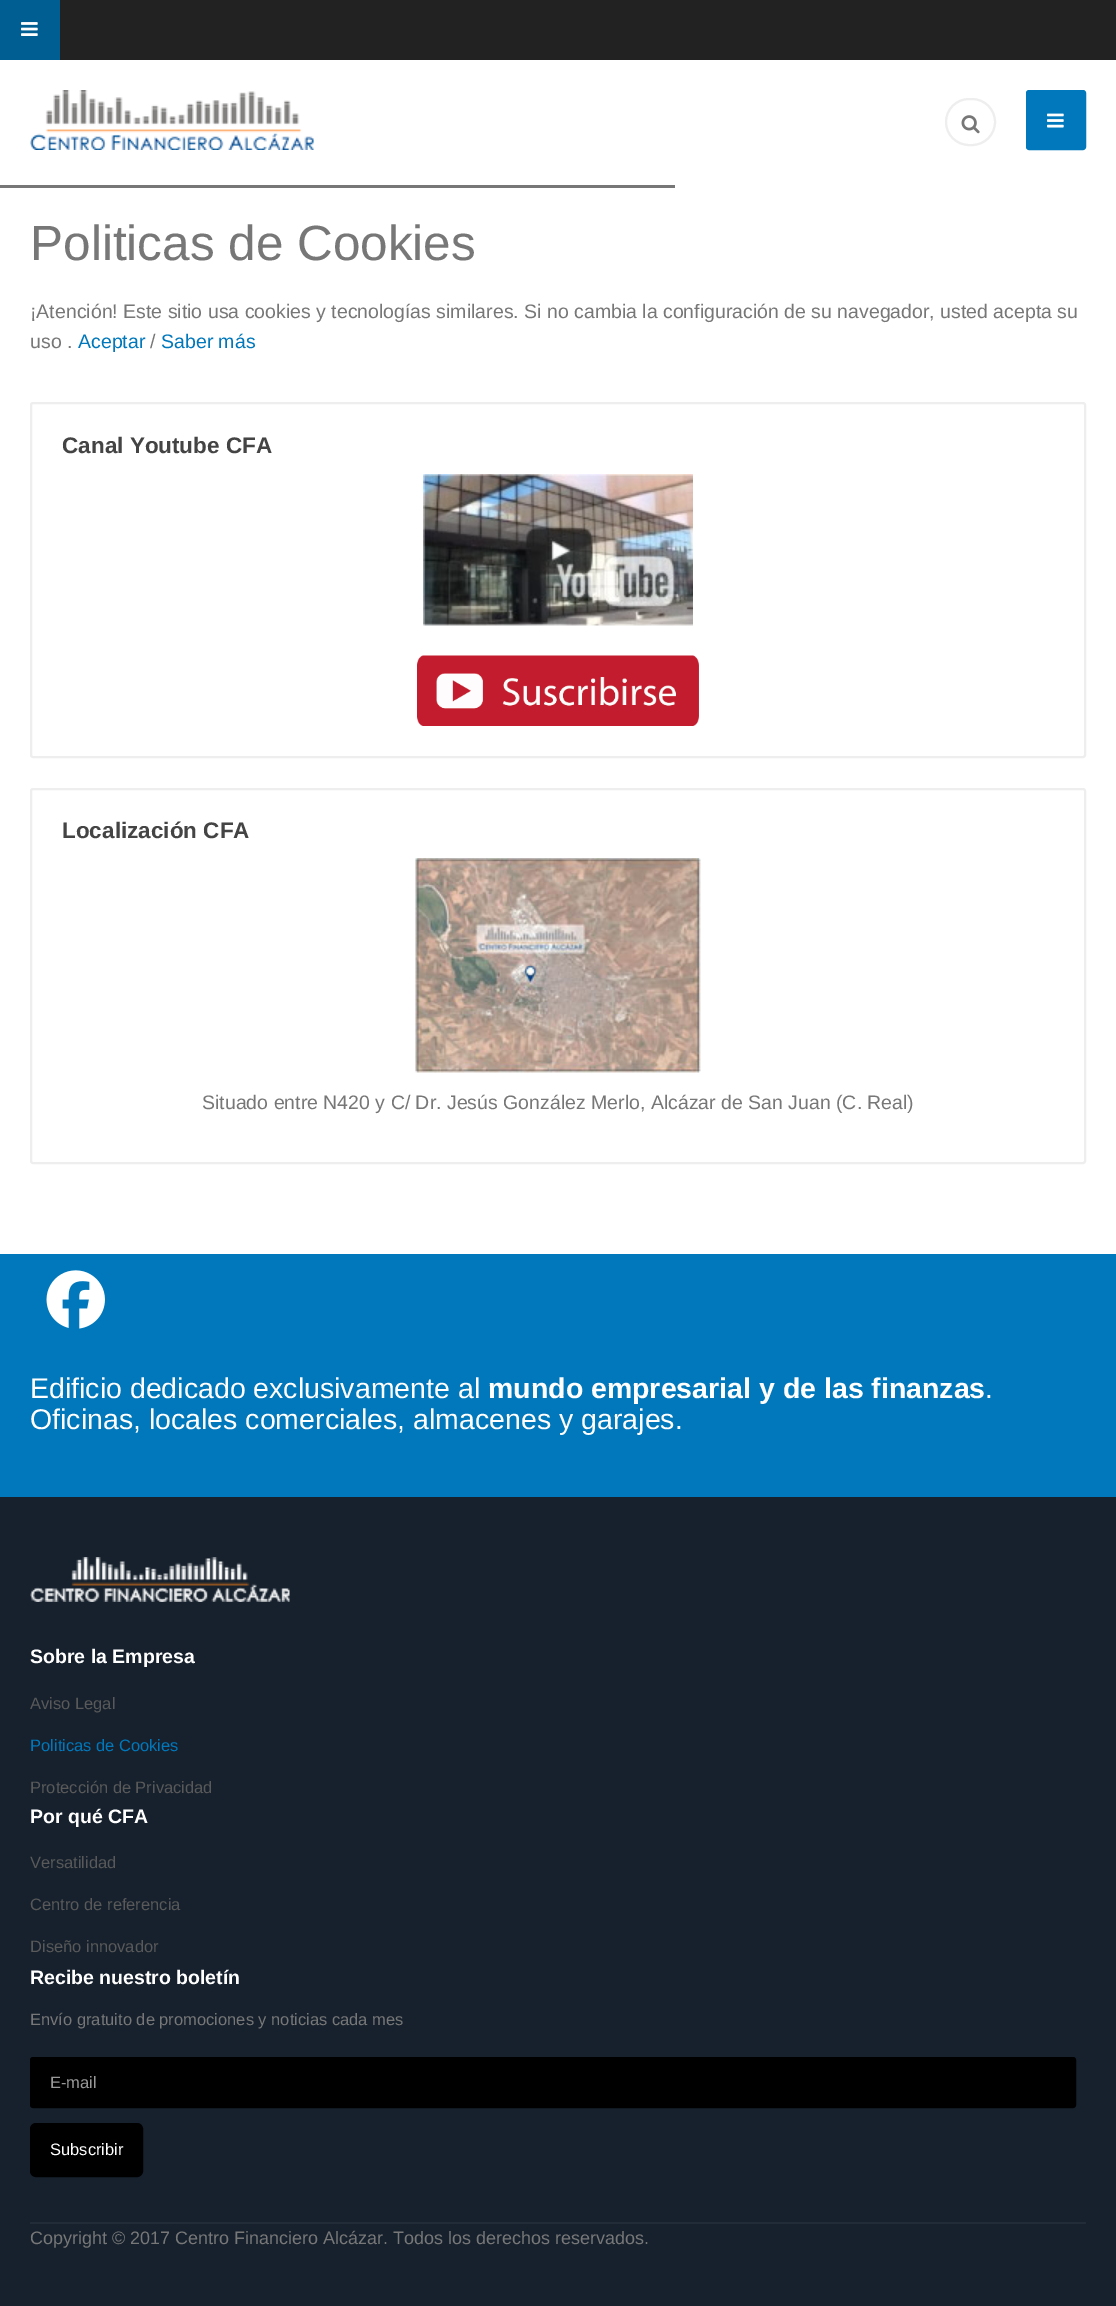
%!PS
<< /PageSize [1116 2306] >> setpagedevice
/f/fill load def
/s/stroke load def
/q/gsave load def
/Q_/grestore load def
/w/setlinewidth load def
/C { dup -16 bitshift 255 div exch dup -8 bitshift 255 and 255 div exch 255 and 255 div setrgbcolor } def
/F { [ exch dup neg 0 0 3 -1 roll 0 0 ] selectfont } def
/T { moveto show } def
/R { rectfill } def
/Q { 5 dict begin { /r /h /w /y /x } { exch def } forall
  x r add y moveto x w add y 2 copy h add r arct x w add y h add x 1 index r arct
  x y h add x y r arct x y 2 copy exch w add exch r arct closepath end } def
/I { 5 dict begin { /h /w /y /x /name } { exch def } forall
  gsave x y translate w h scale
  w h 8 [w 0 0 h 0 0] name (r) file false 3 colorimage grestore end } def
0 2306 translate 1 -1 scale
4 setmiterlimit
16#FFFFFF C
0 0 1116 2306 R
16#005E92 C
0 0 60 60 R
(1.rgb) 21 22 17 14 I
16#222222 C
60 0 1056 60 R
(2.rgb) 30 90 284 60 I
16#0078BB C
1027 91 58 58 2 Q q f Q_
2 w
s
(3.rgb) 1047 113 17 15 I
16#EEEEEE C
946 99 49 46 23 Q s
(4.rgb) 961 115 19 19 I
16#777777 C
0 185 675 3 R
/LiberationSans-Regular 49.5 F
(Politicas de Cookies) 30 260 T
/LiberationSans-Regular 19.5 F
(¡Atención! Este sitio usa cookies y tecnologías similares. Si no cambia la configuración de su navegador, usted acepta su) 30 318 T
(uso .) 30 348 T
16#0078BB C
(Aceptar) 78 348 T
16#777777 C
(/) 150 348 T
16#0078BB C
(Saber más) 161 348 T
16#EEEEEE C
31 403 1054 354 2 Q s
/LiberationSans-Bold 22.5 F
16#444444 C
(Canal Youtube CFA) 62 453 T
(5.rgb) 423 474 270 152 I
(6.rgb) 417 655 282 71 I
16#EEEEEE C
31 789 1054 374 2 Q s
16#444444 C
(Localización CFA) 62 838 T
(7.rgb) 415 858 286 215 I
/LiberationSans-Regular 19.5 F
16#777777 C
(Situado entre N420 y C/ Dr. Jesús González Merlo, Alcázar de San Juan \(C. Real\)) 202 1109 T
16#0078BB C
0 1254 1116 243 R
(8.rgb) 46 1270 59 59 I
/LiberationSans-Regular 28.5 F
16#FFFFFF C
(Edificio dedicado exclusivamente al) 30 1398 T
/LiberationSans-Bold 28.5 F
(mundo empresarial y de las finanzas) 488 1398 T
/LiberationSans-Regular 28.5 F
(.) 985 1398 T
(Oficinas, locales comerciales, almacenes y garajes.) 30 1429 T
16#16212D C
0 1497 1116 809 R
(9.rgb) 30 1557 260 45 I
/LiberationSans-Bold 19.5 F
16#FFFFFF C
(Sobre la Empresa) 30 1663 T
/LiberationSans-Regular 16.5 F
16#595959 C
(Aviso Legal) 30 1709 T
16#0078BB C
(Politicas de Cookies) 30 1751 T
16#595959 C
(Protección de Privacidad) 30 1793 T
/LiberationSans-Bold 19.5 F
16#FFFFFF C
(Por qué CFA) 30 1823 T
/LiberationSans-Regular 16.5 F
16#595959 C
(Versatilidad) 30 1868 T
(Centro de referencia) 30 1910 T
(Diseño innovador) 30 1952 T
/LiberationSans-Bold 19.5 F
16#FFFFFF C
(Recibe nuestro boletín) 30 1984 T
/LiberationSans-Regular 16.5 F
16#777777 C
(Envío gratuito de promociones y noticias cada mes) 30 2025 T
16#000000 C
31 2058 1044 49 2 Q q f Q_
s
16#999999 C
(E-mail) 50 2088 T
16#000000 C
31 2124 111 52 5 Q q f Q_
s
16#FFFFFF C
(Subscribir) 50 2155 T
16#222C38 C
30 2222 1056 2 R
/LiberationSans-Regular 18 F
16#777777 C
(Copyright © 2017 Centro Financiero Alcázar. Todos los derechos reservados.) 30 2244 T
showpage
